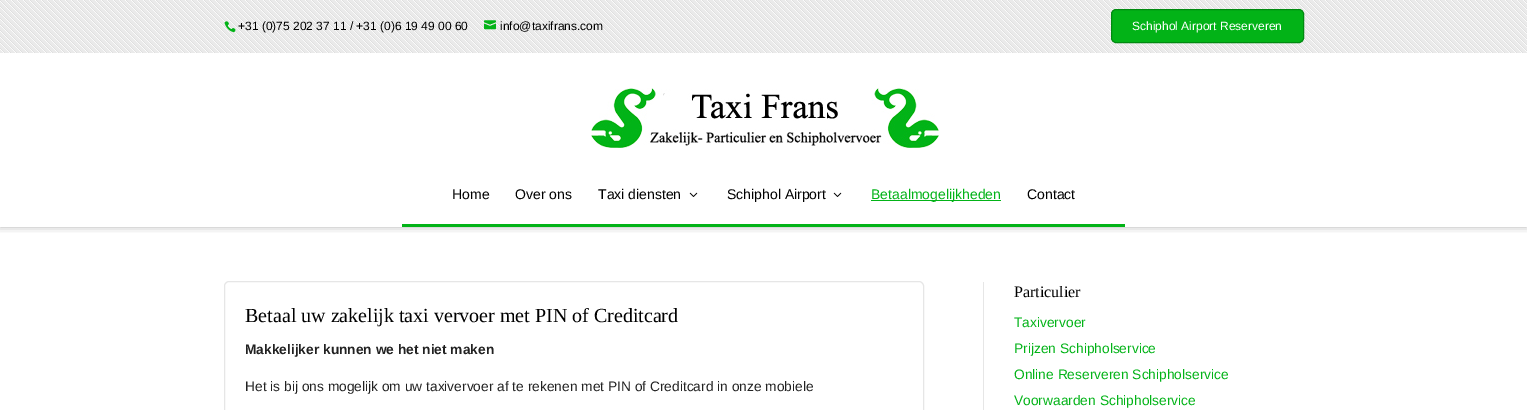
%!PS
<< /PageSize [1527 410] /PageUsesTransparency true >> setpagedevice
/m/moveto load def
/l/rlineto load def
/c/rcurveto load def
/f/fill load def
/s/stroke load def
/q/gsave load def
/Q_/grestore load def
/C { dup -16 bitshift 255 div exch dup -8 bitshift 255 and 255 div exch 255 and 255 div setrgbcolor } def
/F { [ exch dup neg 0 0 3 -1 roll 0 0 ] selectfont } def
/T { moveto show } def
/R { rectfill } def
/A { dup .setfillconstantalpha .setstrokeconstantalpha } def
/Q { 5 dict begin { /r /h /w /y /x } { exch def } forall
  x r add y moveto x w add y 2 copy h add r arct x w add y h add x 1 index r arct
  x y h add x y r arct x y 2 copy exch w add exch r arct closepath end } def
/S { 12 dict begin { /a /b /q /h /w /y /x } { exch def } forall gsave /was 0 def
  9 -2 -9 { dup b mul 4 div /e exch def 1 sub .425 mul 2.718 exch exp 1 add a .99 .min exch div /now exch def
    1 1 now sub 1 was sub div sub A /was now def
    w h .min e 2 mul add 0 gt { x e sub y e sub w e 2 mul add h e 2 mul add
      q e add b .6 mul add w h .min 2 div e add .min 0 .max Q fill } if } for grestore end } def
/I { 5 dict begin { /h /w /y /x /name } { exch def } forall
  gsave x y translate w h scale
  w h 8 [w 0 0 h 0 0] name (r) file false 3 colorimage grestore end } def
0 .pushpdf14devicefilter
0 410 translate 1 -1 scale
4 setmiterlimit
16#FFFFFF C
0 0 1527 410 R
q
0 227 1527 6 rectclip
16#000000 C
0 53 1527 174 0 4 .3 S
Q_
(1.rgb) 0 0 1527 53 I
(2.rgb) 224 21 12 12 I
/LiberationSans-Regular 12 F
16#000000 C
(+31 \(0\)75 202 37 11 / +31 \(0\)6 19 49 00 60) 238 30 T
(3.rgb) 484 20 12 10 I
(info@taxifrans.com) 500 30 T
16#02B317 C
1111.5 9.5 192 33 4.5 Q q f Q_
16#008A10 C
s
16#FFFFFF C
(Schiphol Airport Reserveren) 1132 30 T
(4.rgb) 591 88 348 60 I
16#02B317 C
402 224 723 3 R
/LiberationSans-Regular 14 F
16#000000 C
(Home) 452 199 T
(Over ons) 515 199 T
(Taxi diensten) 598 199 T
(5.rgb) 689 192 9 5 I
(Schiphol Airport) 727 199 T
(5.rgb) 833 192 9 5 I
16#02B317 C
871 200 130 1 R
(Betaalmogelijkheden) 871 199 T
16#000000 C
(Contact) 1027 199 T
16#E6E6E6 C
226 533 m -1 -.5 -1.5 -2 -1.5 -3 c 0 -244 l 0 -1 .5 -2.5 1.5 -3 c .5 -1 2 -1.5 3 -1.5 c 690 0 l 1 0 2.5 .5 3 1.5 c 1 .5 1.5 2 1.5 3 c 0 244 l 0 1 -.5 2.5 -1.5 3 c s
/LiberationSerif-Regular 20 F
16#000000 C
(Betaal uw zakelijk taxi vervoer met PIN of Creditcard) 245 322 T
/LiberationSans-Bold 13.75 F
16#222222 C
(Makkelijker kunnen we het niet maken) 245 354 T
/LiberationSans-Regular 13.75 F
(Het is bij ons mogelijk om uw taxivervoer af te rekenen met PIN of Creditcard in onze mobiele) 245 391 T
16#E6E6E6 C
983 282 1 128 R
/LiberationSerif-Regular 16 F
16#000000 C
(Particulier) 1014 297 T
/LiberationSans-Regular 13.75 F
16#02B317 C
(Taxivervoer) 1014 327 T
(Prijzen Schipholservice) 1014 353 T
(Online Reserveren Schipholservice) 1014 379 T
(Voorwaarden Schipholservice) 1014 405 T
.poppdf14devicefilter showpage
